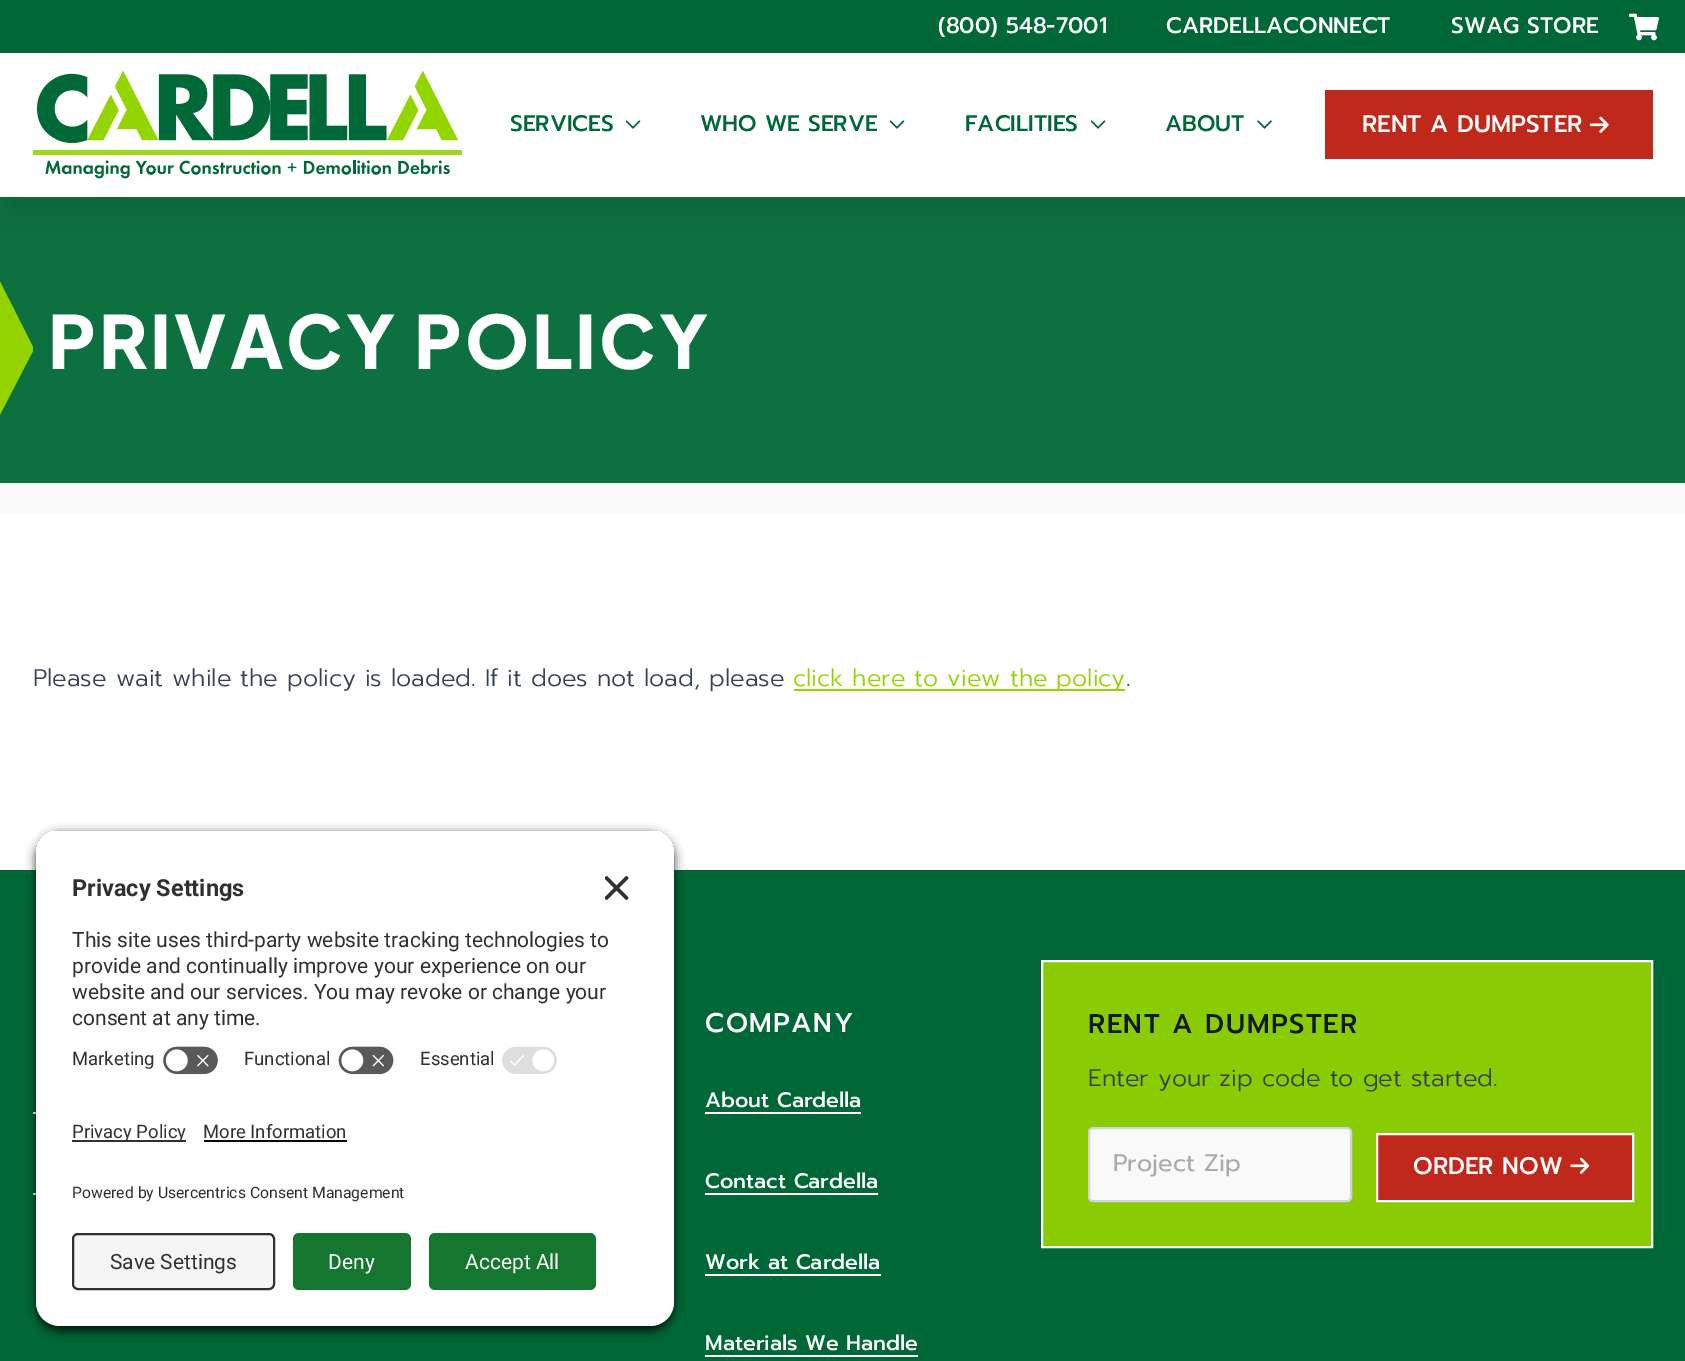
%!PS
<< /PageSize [1685 1361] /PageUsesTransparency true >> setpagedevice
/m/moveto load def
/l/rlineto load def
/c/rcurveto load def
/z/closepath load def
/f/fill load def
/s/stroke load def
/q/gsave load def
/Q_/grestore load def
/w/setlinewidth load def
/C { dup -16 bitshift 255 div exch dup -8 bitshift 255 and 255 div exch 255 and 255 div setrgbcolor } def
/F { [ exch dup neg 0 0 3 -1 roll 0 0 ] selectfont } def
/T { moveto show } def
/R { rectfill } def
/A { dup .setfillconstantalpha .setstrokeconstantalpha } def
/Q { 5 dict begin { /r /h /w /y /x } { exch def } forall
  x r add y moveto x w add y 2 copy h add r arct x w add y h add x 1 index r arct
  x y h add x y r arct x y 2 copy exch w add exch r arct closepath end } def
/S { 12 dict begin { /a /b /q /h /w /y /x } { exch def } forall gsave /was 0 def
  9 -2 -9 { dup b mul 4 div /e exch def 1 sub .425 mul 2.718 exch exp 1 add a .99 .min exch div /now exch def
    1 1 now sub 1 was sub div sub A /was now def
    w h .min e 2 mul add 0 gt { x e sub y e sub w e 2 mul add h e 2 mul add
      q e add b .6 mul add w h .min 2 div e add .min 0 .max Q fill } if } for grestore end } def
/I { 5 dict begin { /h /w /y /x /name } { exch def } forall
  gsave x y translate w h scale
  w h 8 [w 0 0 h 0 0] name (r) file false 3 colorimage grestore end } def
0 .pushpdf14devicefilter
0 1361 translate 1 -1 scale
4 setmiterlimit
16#FFFFFF C
0 0 1685 1361 R
16#0D7041 C
0 197 1685 286 R
16#000000 C
8 15 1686 197 0 19 .14 S
16#FFFFFF C
0 53 1685 144 R
16#006837 C
0 0 1685 53 R
/Prompt-Medium 22.5 F
16#FFFFFF C
(\(800\) 548-7001) 938 33 T
(CARDELLACONNECT) 1166 33 T
(SWAG STORE) 1451 33 T
(1.rgb) 1629 13 30 28 I
(2.rgb) 33 71 429 108 I
16#006837 C
(SERVICES) 510 131 T
(3.rgb) 626 120 15 9 I
(WHO WE SERVE) 700 131 T
(3.rgb) 890 120 15 9 I
(FACILITIES) 965 131 T
(3.rgb) 1091 120 15 9 I
(ABOUT) 1165 131 T
(4.rgb) 1257 120 15 9 I
16#BF281B C
1325 90 328 69 R
/Prompt-Medium 24 F
16#FFFFFF C
(RENT A DUMPSTER) 1362 132 T
(5.rgb) 1589 116 20 17 I
q
0 161 33 322 rectclip
16#93D400 C
-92 592 m -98 0 l 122 -240 l -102 -200 l 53 -102 l 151 299 l z f
Q_
/PlusJakartaSans-ExtraBold 73.25 F
48 369 m 3 0 (PRIVACY POLICY) ashow
16#F9F9F9 C
0 483 1685 30 R
/Prompt-Light 24 F
16#374151 C
(Please wait while the policy is loaded. If it does not load, please) 33 686 T
16#93D400 C
794 689 331 2 R
(click here to view the policy) 793 686 T
16#374151 C
(.) 1126 686 T
16#006837 C
0 870 1685 491 R
16#FFFFFF C
33 1112 3 2 R
33 1193 3 2 R
16#000000 C
36 834 638 497 24 5 .8 S
q
60 830 m 590 0 l 13.5 0 24 10.5 24 24 c 0 244 l -638 0 l 0 -244 l 0 -13.5 10.5 -24 24 -24 c z clip newpath
16#FFFFFF C
36 831 638 267 R
36 831 638 207 R
Q_
/Roboto-Bold 23.5 F
16#303030 C
(Privacy Settings) 72 896 T
(6.rgb) 605 876 24 24 I
/Roboto-Regular 21 F
(This site uses third-party website tracking technologies to) 72 947 T
(provide and continually improve your experience on our) 72 973 T
(website and our services. You may revoke or change your) 72 999 T
(consent at any time.) 72 1025 T
/Roboto-Regular 18.5 F
(Marketing) 72 1065 T
(7.rgb) 163 1046 55 29 I
(Functional) 244 1065 T
(8.rgb) 338 1046 56 29 I
(Essential) 420 1065 T
(9.rgb) 502 1046 55 28 I
16#FFFFFF C
36 1098 m 638 0 l 0 204 l 0 13.5 -10.5 24 -24 24 c -590 0 l -13.5 0 -24 -10.5 -24 -24 c z f
16#303030 C
72 1140 114 2 R
(Privacy Policy) 72 1138 T
(More Information) 203 1138 T
16#000000 C
204 1140 143 2 R
/Roboto-Regular 15.75 F
16#303030 C
(Powered by Usercentrics Consent Management) 72 1198 T
16#F5F5F5 C
73 1234 201 55 5 Q q f Q_
16#303030 C
2 w
s
/Roboto-Regular 21 F
(Save Settings) 110 1269 T
16#14762F C
293 1233 118 57 6 Q f
16#FFFFFF C
(Deny) 328 1269 T
16#14762F C
429 1233 167 57 6 Q f
16#FFFFFF C
(Accept All) 465 1269 T
/Prompt-Medium 27 F
705 1032 m 1.5 0 (COMPANY) ashow
/Prompt-Medium 21 F
(About Cardella) 705 1107 T
705 1112 156 2 R
(Contact Cardella) 705 1188 T
705 1193 173 2 R
(Work at Cardella) 705 1269 T
705 1274 176 2 R
(Materials We Handle) 705 1350 T
705 1355 213 2 R
16#89CC04 C
1042 961 m 610 0 l 0 286 l -610 0 l z q f Q_
16#FFFFFF C
s
/Prompt-Medium 27 F
16#111827 C
1088 1033 m 1.5 0 (RENT A DUMPSTER) ashow
/Prompt-Light 24 F
16#374151 C
(Enter your zip code to get started.) 1088 1086 T
16#F9F9F9 C
1089 1128 262 73 4 Q q f Q_
16#D1D5DB C
s
/Prompt-Regular 24 F
16#A9A9A9 C
(Project Zip) 1113 1171 T
16#BF281B C
1377 1134 m 256 0 l 0 67 l -256 0 l z q f Q_
16#FFFFFF C
s
/Prompt-Medium 24 F
(ORDER NOW) 1413 1174 T
(10.rgb) 1570 1157 20 17 I
.poppdf14devicefilter showpage
